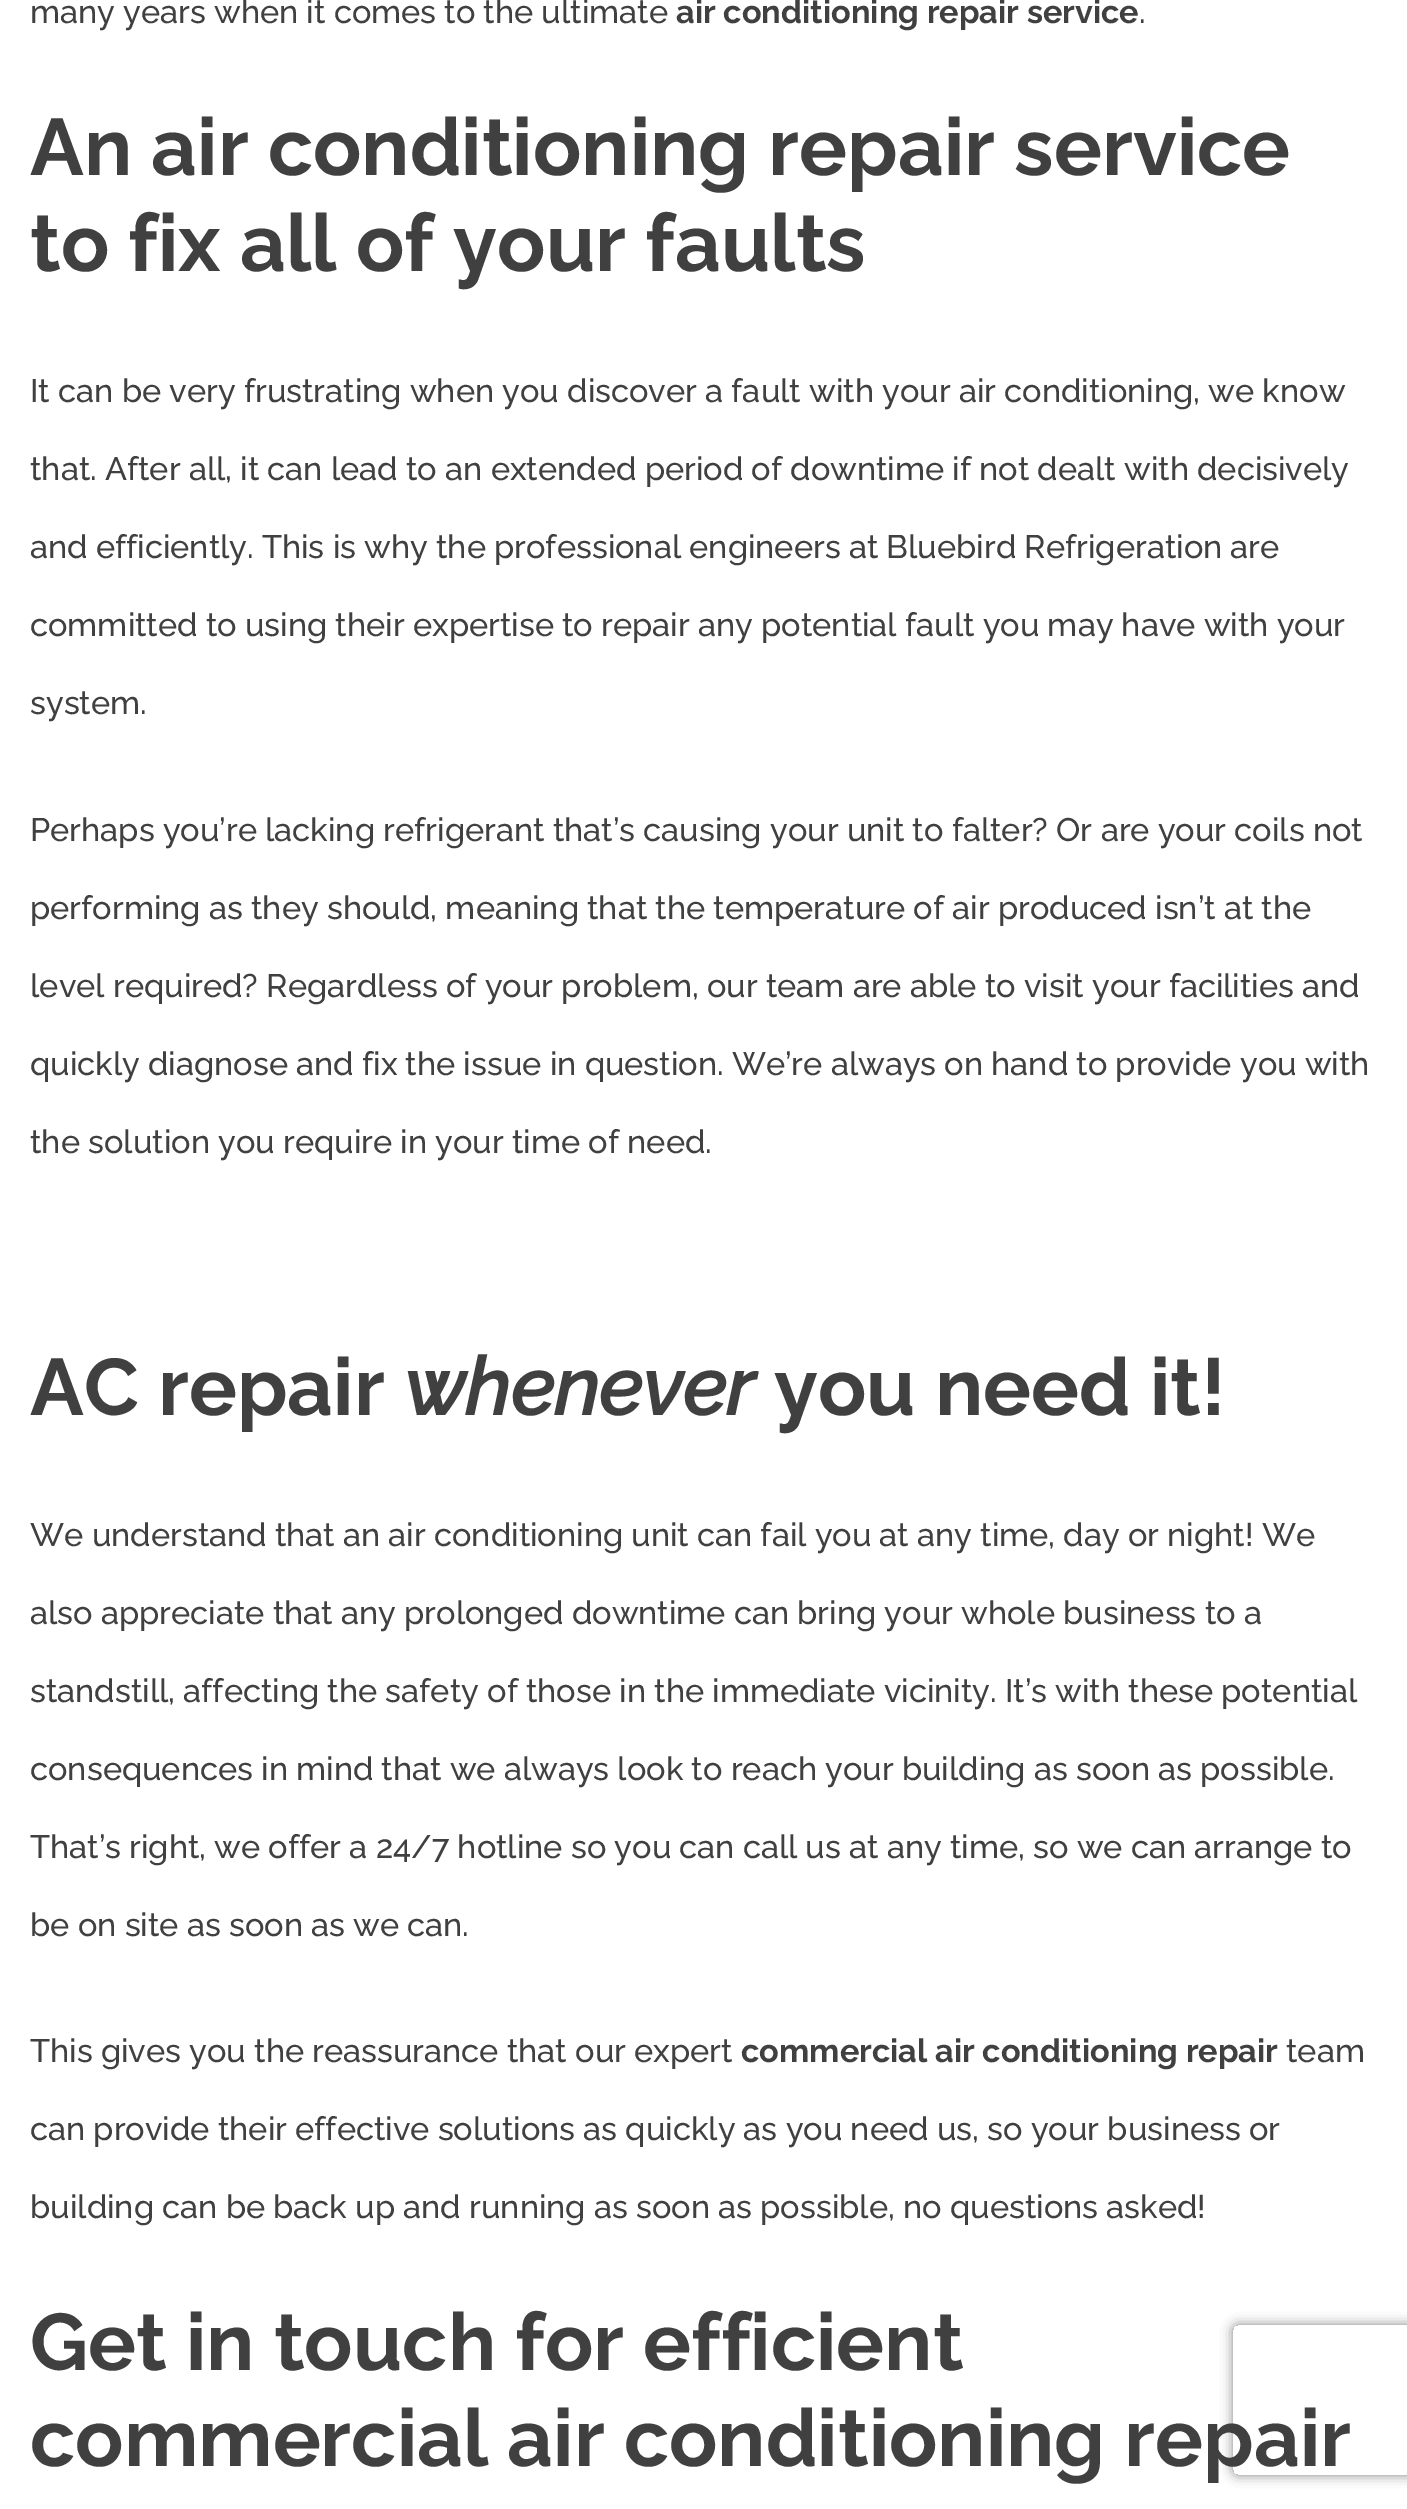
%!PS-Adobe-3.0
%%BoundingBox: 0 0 1407 2509
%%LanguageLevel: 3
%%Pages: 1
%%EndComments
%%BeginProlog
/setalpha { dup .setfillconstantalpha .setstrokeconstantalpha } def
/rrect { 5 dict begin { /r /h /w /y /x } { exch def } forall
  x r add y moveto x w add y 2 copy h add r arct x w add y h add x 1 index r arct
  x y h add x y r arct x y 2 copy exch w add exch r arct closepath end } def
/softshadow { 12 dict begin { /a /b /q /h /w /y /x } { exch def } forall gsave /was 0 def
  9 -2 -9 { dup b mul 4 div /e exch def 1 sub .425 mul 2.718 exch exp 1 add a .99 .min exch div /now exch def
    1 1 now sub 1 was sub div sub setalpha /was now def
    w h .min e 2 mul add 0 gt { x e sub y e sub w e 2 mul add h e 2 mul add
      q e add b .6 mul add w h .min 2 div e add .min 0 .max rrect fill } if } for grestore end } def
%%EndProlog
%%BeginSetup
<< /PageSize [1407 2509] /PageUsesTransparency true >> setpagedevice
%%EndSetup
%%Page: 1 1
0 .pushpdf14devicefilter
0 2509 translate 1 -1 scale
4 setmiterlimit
1 setgray
0 0 1407 2509 rectfill
gsave
newpath 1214 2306 moveto 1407 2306 lineto 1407 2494 lineto 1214 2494 lineto closepath 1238 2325 moveto 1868 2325 lineto 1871 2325 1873 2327 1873 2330 curveto 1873 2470 lineto 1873 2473 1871 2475 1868 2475 curveto 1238 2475 lineto 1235 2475 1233 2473 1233 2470 curveto 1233 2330 lineto 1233 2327 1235 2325 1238 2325 curveto closepath eoclip newpath
0.502 setgray
1233 2325 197 150 5 6 1 softshadow
grestore
/Raleway-Medium [32.5 0 0 -32.5 0 0] selectfont
0.251 setgray
30 23 moveto (many years when it comes to the ultimate) show
/Raleway-Bold [32.5 0 0 -32.5 0 0] selectfont
676 23 moveto (air conditioning repair service) show
/Raleway-Medium [32.5 0 0 -32.5 0 0] selectfont
1139 23 moveto (.) show
/Raleway-Bold [80 0 0 -80 0 0] selectfont
30 175 moveto (An air conditioning repair service) show
30 271 moveto (to fix all of your faults) show
/Raleway-Medium [32.5 0 0 -32.5 0 0] selectfont
30 402 moveto (It can be very frustrating when you discover a fault with your air conditioning, we know) show
30 480 moveto (that. After all, it can lead to an extended period of downtime if not dealt with decisively) show
30 558 moveto (and efficiently. This is why the professional engineers at Bluebird Refrigeration are) show
30 636 moveto (committed to using their expertise to repair any potential fault you may have with your) show
30 714 moveto (system.) show
30 841 moveto (Perhaps you’re lacking refrigerant that’s causing your unit to falter? Or are your coils not) show
30 919 moveto (performing as they should, meaning that the temperature of air produced isn’t at the) show
30 997 moveto (level required? Regardless of your problem, our team are able to visit your facilities and) show
30 1075 moveto (quickly diagnose and fix the issue in question. We’re always on hand to provide you with) show
30 1153 moveto (the solution you require in your time of need.) show
/Raleway-Bold [80 0 0 -80 0 0] selectfont
30 1415 moveto (AC repair) show
/Raleway-BoldItalic [80 0 0 -80 0 0] selectfont
404 1415 moveto (whenever) show
/Raleway-Bold [80 0 0 -80 0 0] selectfont
774 1415 moveto (you need it!) show
/Raleway-Medium [32.5 0 0 -32.5 0 0] selectfont
30 1546 moveto (We understand that an air conditioning unit can fail you at any time, day or night! We) show
30 1624 moveto (also appreciate that any prolonged downtime can bring your whole business to a) show
30 1702 moveto (standstill, affecting the safety of those in the immediate vicinity. It’s with these potential) show
30 1780 moveto (consequences in mind that we always look to reach your building as soon as possible.) show
30 1858 moveto (That’s right, we offer a 24/7 hotline so you can call us at any time, so we can arrange to) show
30 1936 moveto (be on site as soon as we can.) show
30 2062 moveto (This gives you the reassurance that our expert) show
/Raleway-Bold [32.5 0 0 -32.5 0 0] selectfont
741 2062 moveto (commercial air conditioning repair) show
/Raleway-Medium [32.5 0 0 -32.5 0 0] selectfont
1286 2062 moveto (team) show
30 2140 moveto (can provide their effective solutions as quickly as you need us, so your business or) show
30 2218 moveto (building can be back up and running as soon as possible, no questions asked!) show
/Raleway-Bold [80 0 0 -80 0 0] selectfont
30 2370 moveto (Get in touch for efficient) show
30 2466 moveto (commercial air conditioning repair) show
.poppdf14devicefilter showpage
%%EOF
